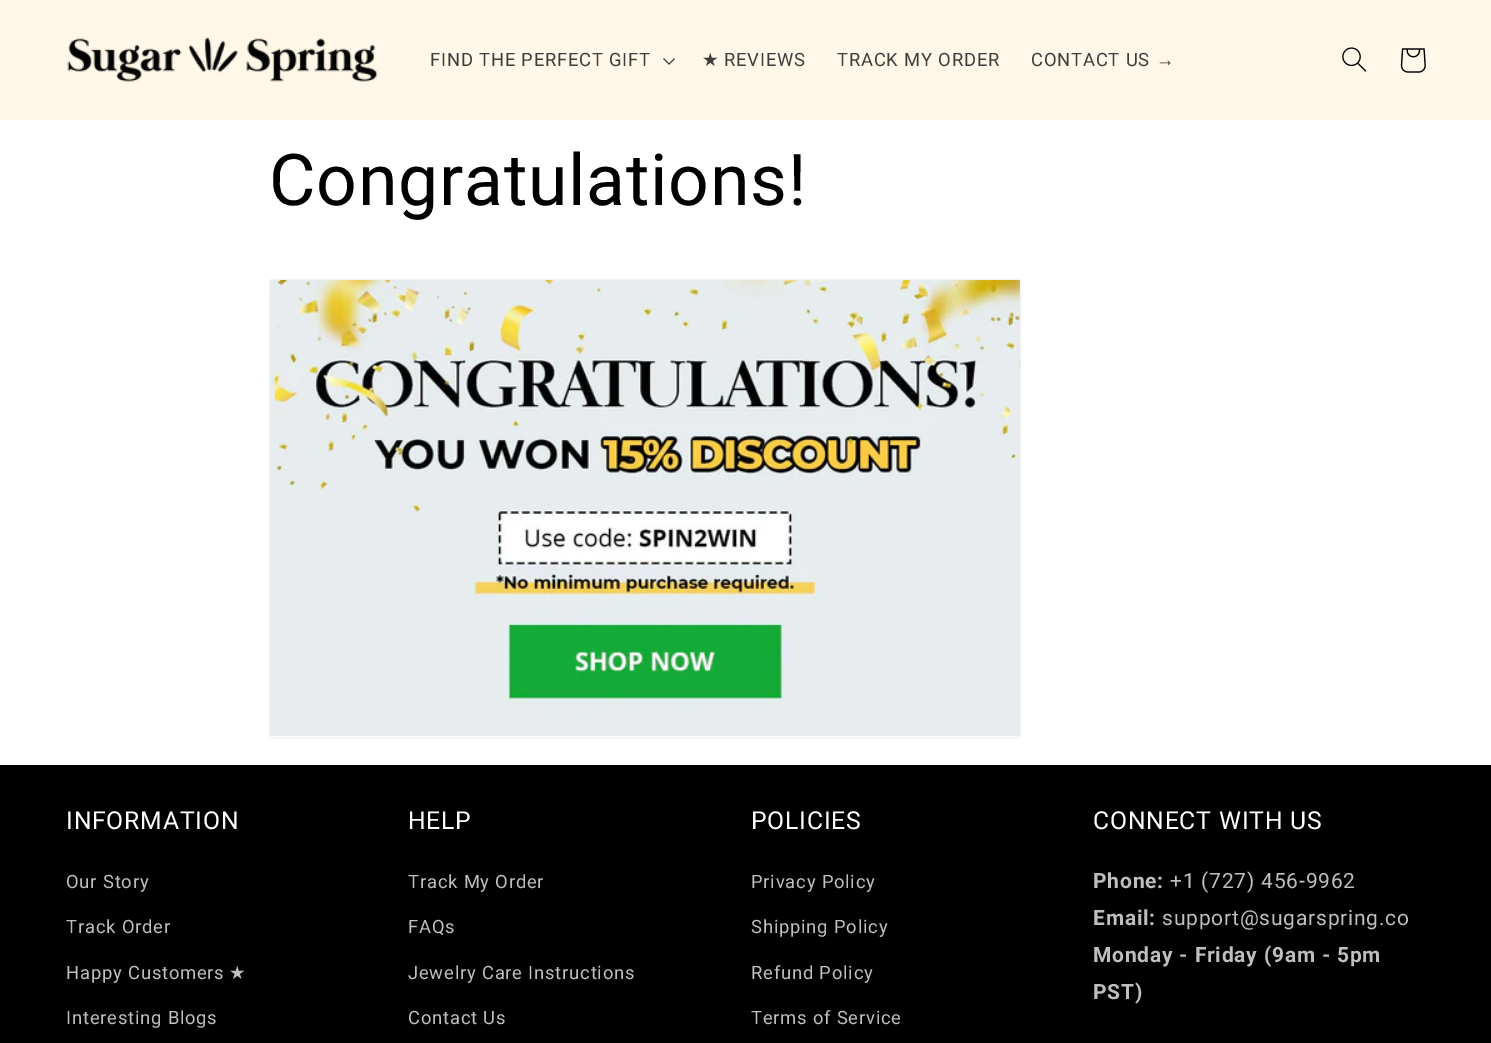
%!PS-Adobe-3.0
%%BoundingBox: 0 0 1491 1043
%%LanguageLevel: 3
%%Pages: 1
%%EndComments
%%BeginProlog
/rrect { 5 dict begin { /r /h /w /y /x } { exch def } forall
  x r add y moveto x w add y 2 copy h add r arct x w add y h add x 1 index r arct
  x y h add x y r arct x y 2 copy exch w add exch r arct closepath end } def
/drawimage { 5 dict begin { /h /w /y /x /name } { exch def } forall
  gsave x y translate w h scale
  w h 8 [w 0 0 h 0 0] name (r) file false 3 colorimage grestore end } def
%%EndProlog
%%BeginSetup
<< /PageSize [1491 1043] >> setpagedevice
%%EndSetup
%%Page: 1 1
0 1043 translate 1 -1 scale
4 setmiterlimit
1 setgray
0 0 1491 1043 rectfill
1 0.973 0.914 setrgbcolor
0 0 1491 120 rectfill
(images/1.raw) 67 37 311 45 drawimage
(images/2.raw) 663 58 12 7 drawimage
(images/3.raw) 1342 47 25 25 drawimage
(images/4.raw) 1400 48 26 25 drawimage
0.949 setgray
269.5 279.5 751 458 2 rrect stroke
(images/5.raw) 270 280 750 456 drawimage
0 setgray
0 765 1491 278 rectfill
/Roboto-Regular [18.4 0 0 -18.4 0 0] selectfont
0.251 0.243 0.227 setrgbcolor
430 66 moveto 0.8 0 (FIND THE PERFECT GIFT) ashow
/DejaVuSans-Regular [18.4 0 0 -18.4 0 0] selectfont
702 66 moveto 0.8 0 (★) ashow
/Roboto-Regular [18.4 0 0 -18.4 0 0] selectfont
724 66 moveto 0.8 0 (REVIEWS) ashow
837 66 moveto 0.8 0 (TRACK MY ORDER) ashow
1031 66 moveto 0.8 0 (CONTACT US) ashow
/LiberationSans-Regular [18.4 0 0 -18.4 0 0] selectfont
1156 66 moveto 0.8 0 (→) ashow
/Roboto-Regular [71.5 0 0 -71.5 0 0] selectfont
0 setgray
269 205 moveto 0.8 0 (Congratulations!) ashow
/Roboto-Regular [24.75 0 0 -24.75 0 0] selectfont
1 setgray
66 829 moveto 0.8 0 (INFORMATION) ashow
/Roboto-Regular [18.4 0 0 -18.4 0 0] selectfont
0.749 setgray
66 888 moveto 0.8 0 (Our Story) ashow
66 933 moveto 0.8 0 (Track Order) ashow
66 979 moveto 0.8 0 (Happy Customers) ashow
/DejaVuSans-Regular [18.4 0 0 -18.4 0 0] selectfont
229 979 moveto 0.8 0 (★) ashow
/Roboto-Regular [18.4 0 0 -18.4 0 0] selectfont
66 1024 moveto 0.8 0 (Interesting Blogs) ashow
/Roboto-Regular [24.75 0 0 -24.75 0 0] selectfont
1 setgray
408 829 moveto 0.8 0 (HELP) ashow
/Roboto-Regular [18.4 0 0 -18.4 0 0] selectfont
0.749 setgray
408 888 moveto 0.8 0 (Track My Order) ashow
408 933 moveto 0.8 0 (FAQs) ashow
408 979 moveto 0.8 0 (Jewelry Care Instructions) ashow
408 1024 moveto 0.8 0 (Contact Us) ashow
/Roboto-Regular [24.75 0 0 -24.75 0 0] selectfont
1 setgray
751 829 moveto 0.8 0 (POLICIES) ashow
/Roboto-Regular [18.4 0 0 -18.4 0 0] selectfont
0.749 setgray
751 888 moveto 0.8 0 (Privacy Policy) ashow
751 933 moveto 0.8 0 (Shipping Policy) ashow
751 979 moveto 0.8 0 (Refund Policy) ashow
751 1024 moveto 0.8 0 (Terms of Service) ashow
/Roboto-Regular [24.75 0 0 -24.75 0 0] selectfont
1 setgray
1093 829 moveto 0.8 0 (CONNECT WITH US) ashow
/Roboto-Bold [21 0 0 -21 0 0] selectfont
0.749 setgray
1093 888 moveto 0.8 0 (Phone:) ashow
/Roboto-Regular [21 0 0 -21 0 0] selectfont
1170 888 moveto 0.8 0 (+1 \(727\) 456-9962) ashow
/Roboto-Bold [21 0 0 -21 0 0] selectfont
1093 925 moveto 0.8 0 (Email:) ashow
/Roboto-Regular [21 0 0 -21 0 0] selectfont
1162 925 moveto 0.8 0 (support@sugarspring.co) ashow
/Roboto-Bold [21 0 0 -21 0 0] selectfont
1093 962 moveto 0.8 0 (Monday - Friday \(9am - 5pm) ashow
1093 999 moveto 0.8 0 (PST\)) ashow
showpage
%%EOF
